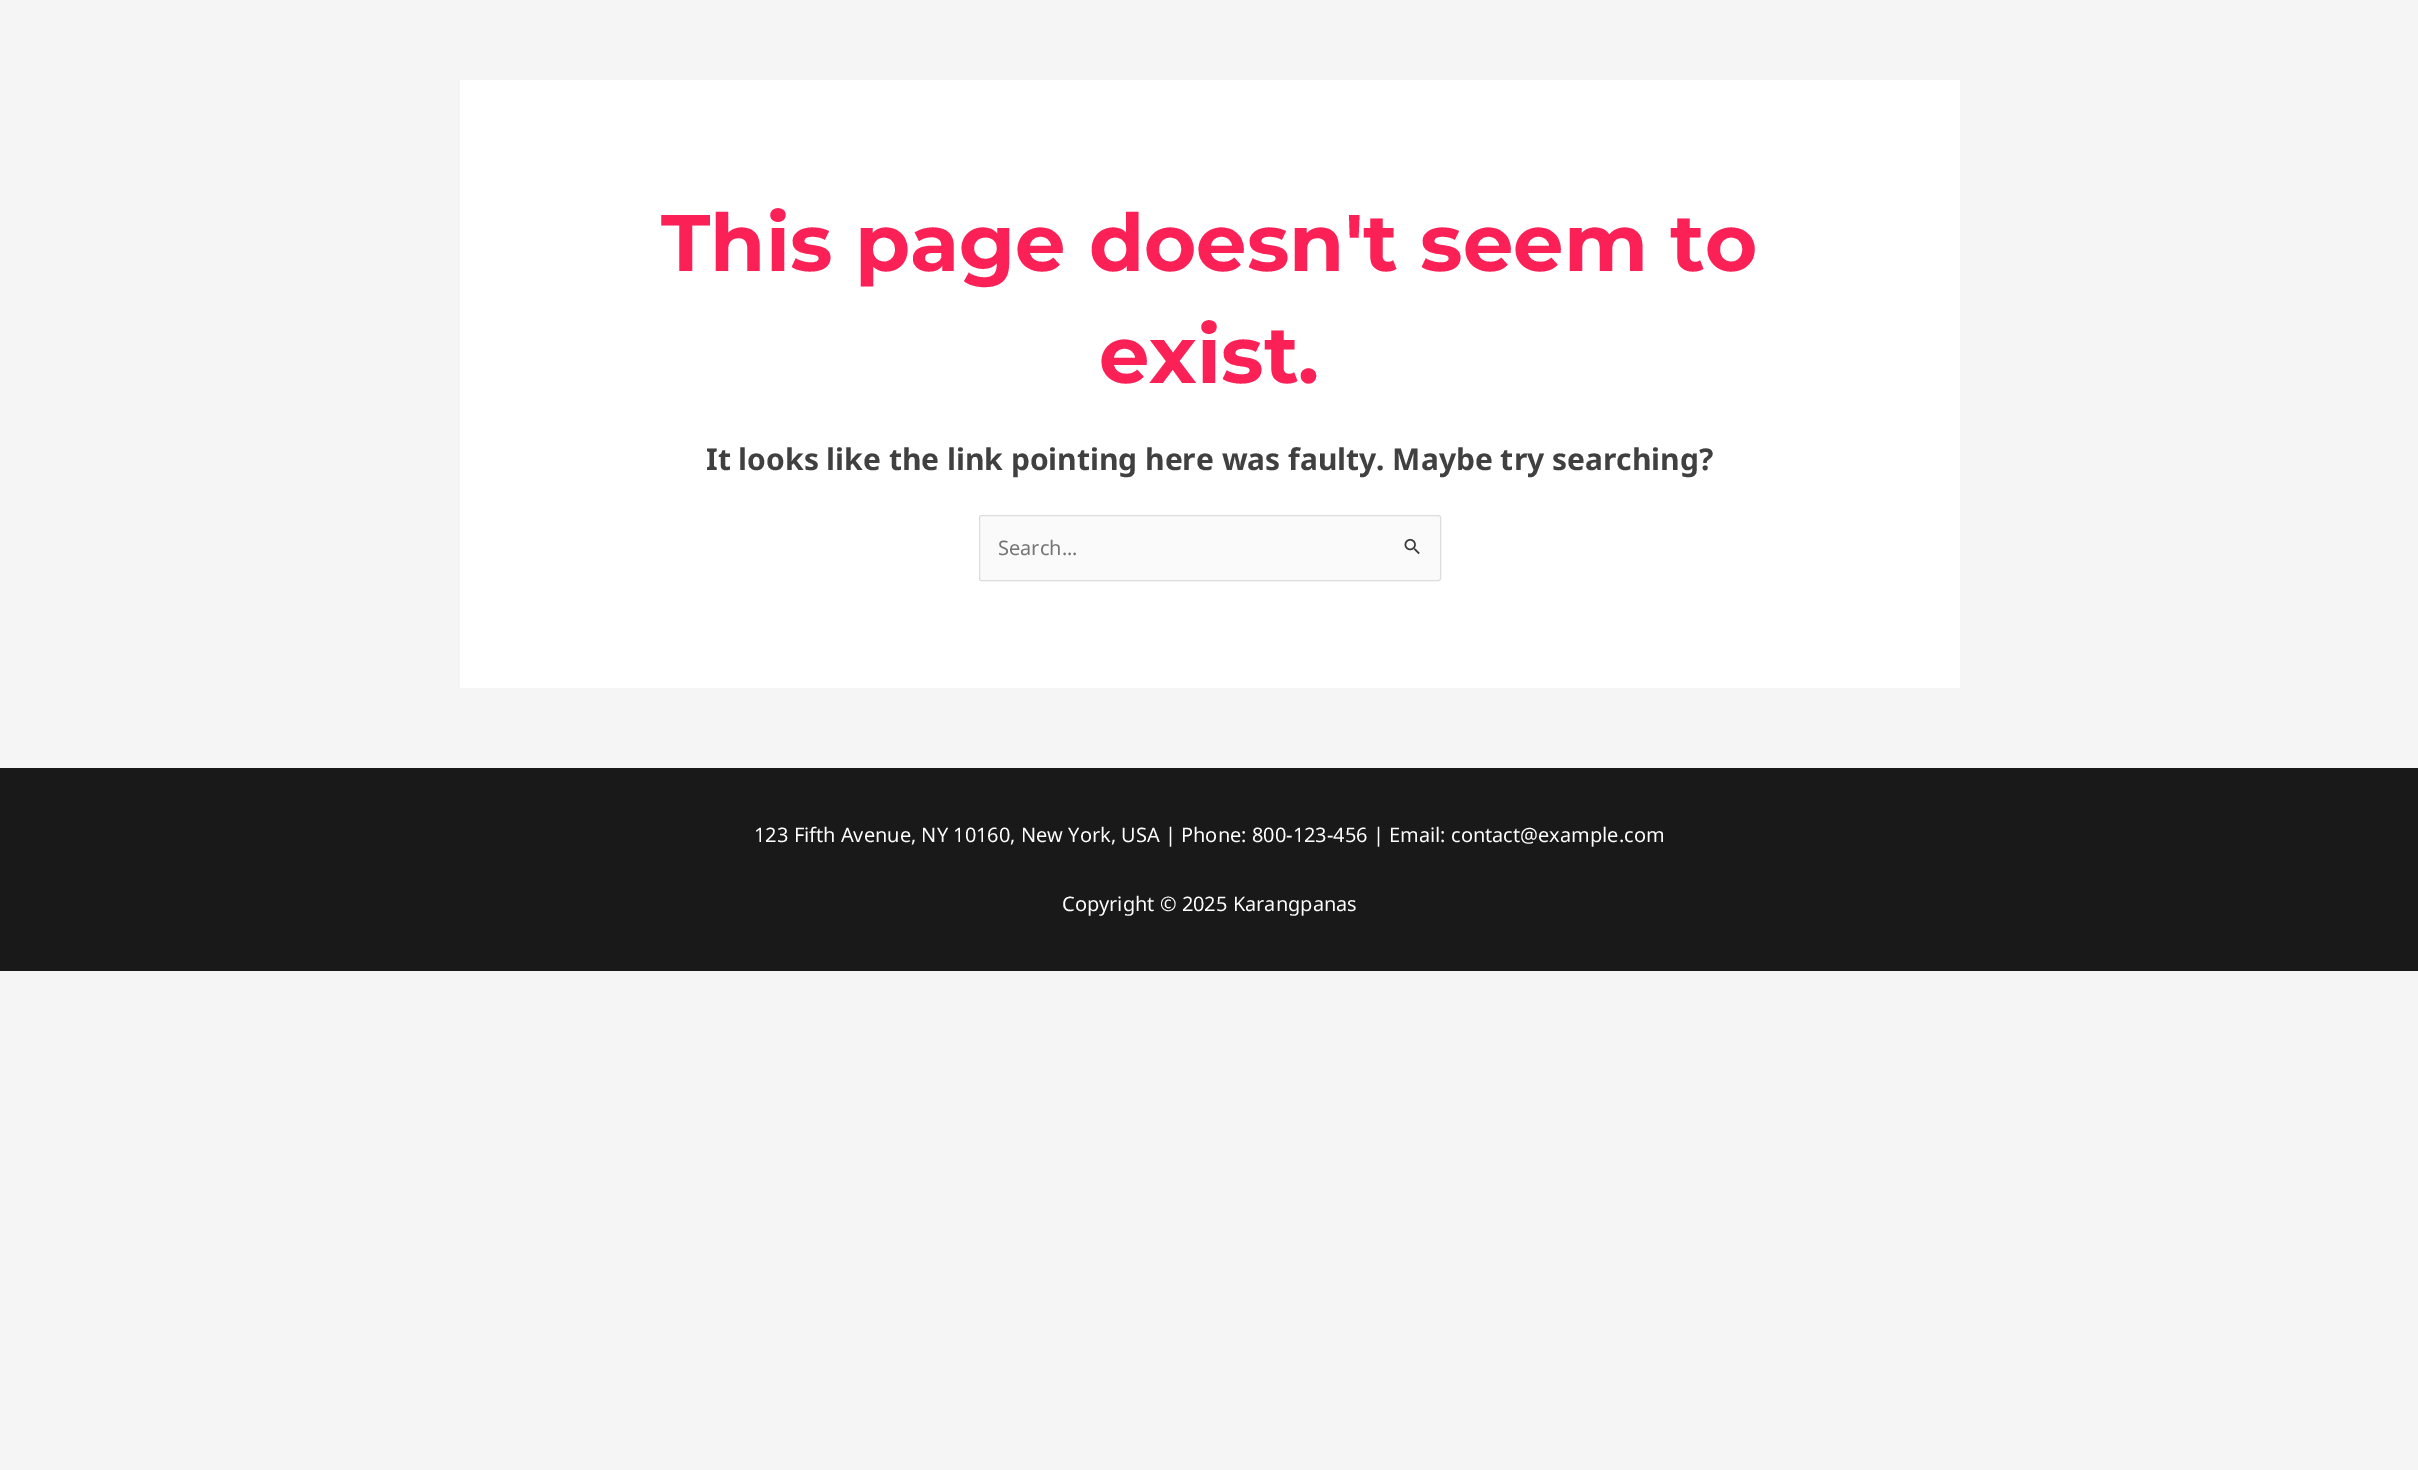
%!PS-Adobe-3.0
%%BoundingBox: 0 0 2418 1470
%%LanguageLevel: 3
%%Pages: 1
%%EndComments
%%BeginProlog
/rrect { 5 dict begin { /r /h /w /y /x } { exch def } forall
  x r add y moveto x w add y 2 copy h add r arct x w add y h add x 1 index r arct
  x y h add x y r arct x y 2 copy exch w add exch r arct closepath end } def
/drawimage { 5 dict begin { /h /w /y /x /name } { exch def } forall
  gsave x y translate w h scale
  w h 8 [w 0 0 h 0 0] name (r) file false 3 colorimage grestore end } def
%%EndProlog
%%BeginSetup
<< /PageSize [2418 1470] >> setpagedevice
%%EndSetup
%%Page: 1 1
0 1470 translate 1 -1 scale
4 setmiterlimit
0.961 setgray
0 0 2418 1470 rectfill
1 setgray
460 80 1500 608 rectfill
0.98 setgray
979.5 515.5 461 65 2 rrect gsave fill grestore
0.867 setgray
stroke
(images/1.raw) 1404 538 16 17 drawimage
0.098 setgray
0 768 2418 203 rectfill
/Montserrat-Thin [80 0 0 -80 0 0] selectfont
0.984 0.125 0.337 setrgbcolor
661 271 moveto (This page doesn't seem to) show
1099 383 moveto (exist.) show
/NotoSans-Bold [30 0 0 -30 0 0] selectfont
0.251 setgray
706 470 moveto (It looks like the link pointing here was faulty. Maybe try searching?) show
/NotoSans-Regular [20 0 0 -20 0 0] selectfont
0.459 setgray
998 555 moveto (Search...) show
1 setgray
754 842 moveto (123 Fifth Avenue, NY 10160, New York, USA | Phone: 800-123-456 | Email: contact@example.com) show
1062 911 moveto (Copyright © 2025 Karangpanas) show
showpage
%%EOF
